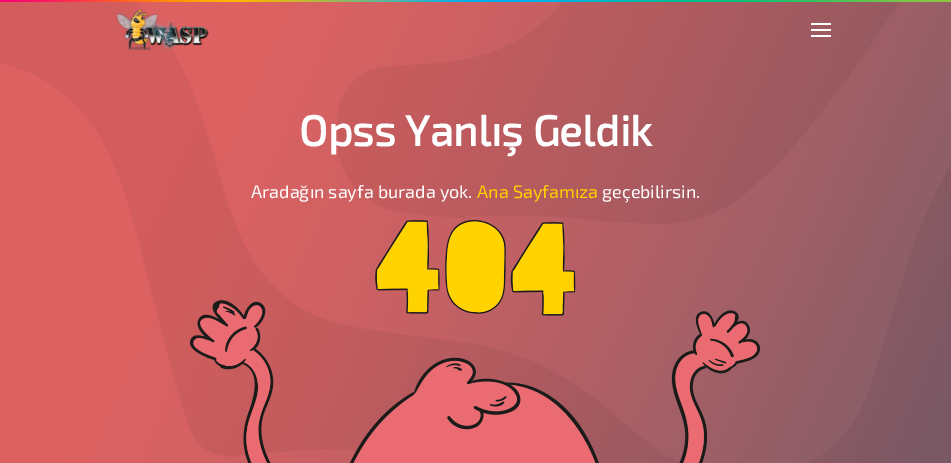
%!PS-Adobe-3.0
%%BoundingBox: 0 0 951 463
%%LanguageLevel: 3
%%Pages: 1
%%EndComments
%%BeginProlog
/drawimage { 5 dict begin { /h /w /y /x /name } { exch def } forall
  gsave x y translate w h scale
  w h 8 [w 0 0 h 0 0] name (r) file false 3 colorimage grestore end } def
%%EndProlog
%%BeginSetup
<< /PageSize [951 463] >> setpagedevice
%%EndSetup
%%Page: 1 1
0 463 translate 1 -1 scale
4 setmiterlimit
1 setgray
0 0 951 463 rectfill
(images/1.raw) 0 0 951 2 drawimage
(images/3.raw) 0 2 951 461 drawimage
(images/2.raw) 116 10 93 40 drawimage
811 35 20 2 rectfill
811 23 20 2 rectfill
811 29 20 2 rectfill
(images/4.raw) 190 220 570 243 drawimage
/Exo2-Bold [42.75 0 0 -42.75 0 0] selectfont
299 146 moveto (Opss Yanlış Geldik) show
/Exo2-Regular [18 0 0 -18 0 0] selectfont
251 198 moveto (Aradağın sayfa burada yok.) show
1 0.824 0 setrgbcolor
477 198 moveto (Ana Sayfamıza) show
1 setgray
602 198 moveto (geçebilirsin.) show
showpage
%%EOF
